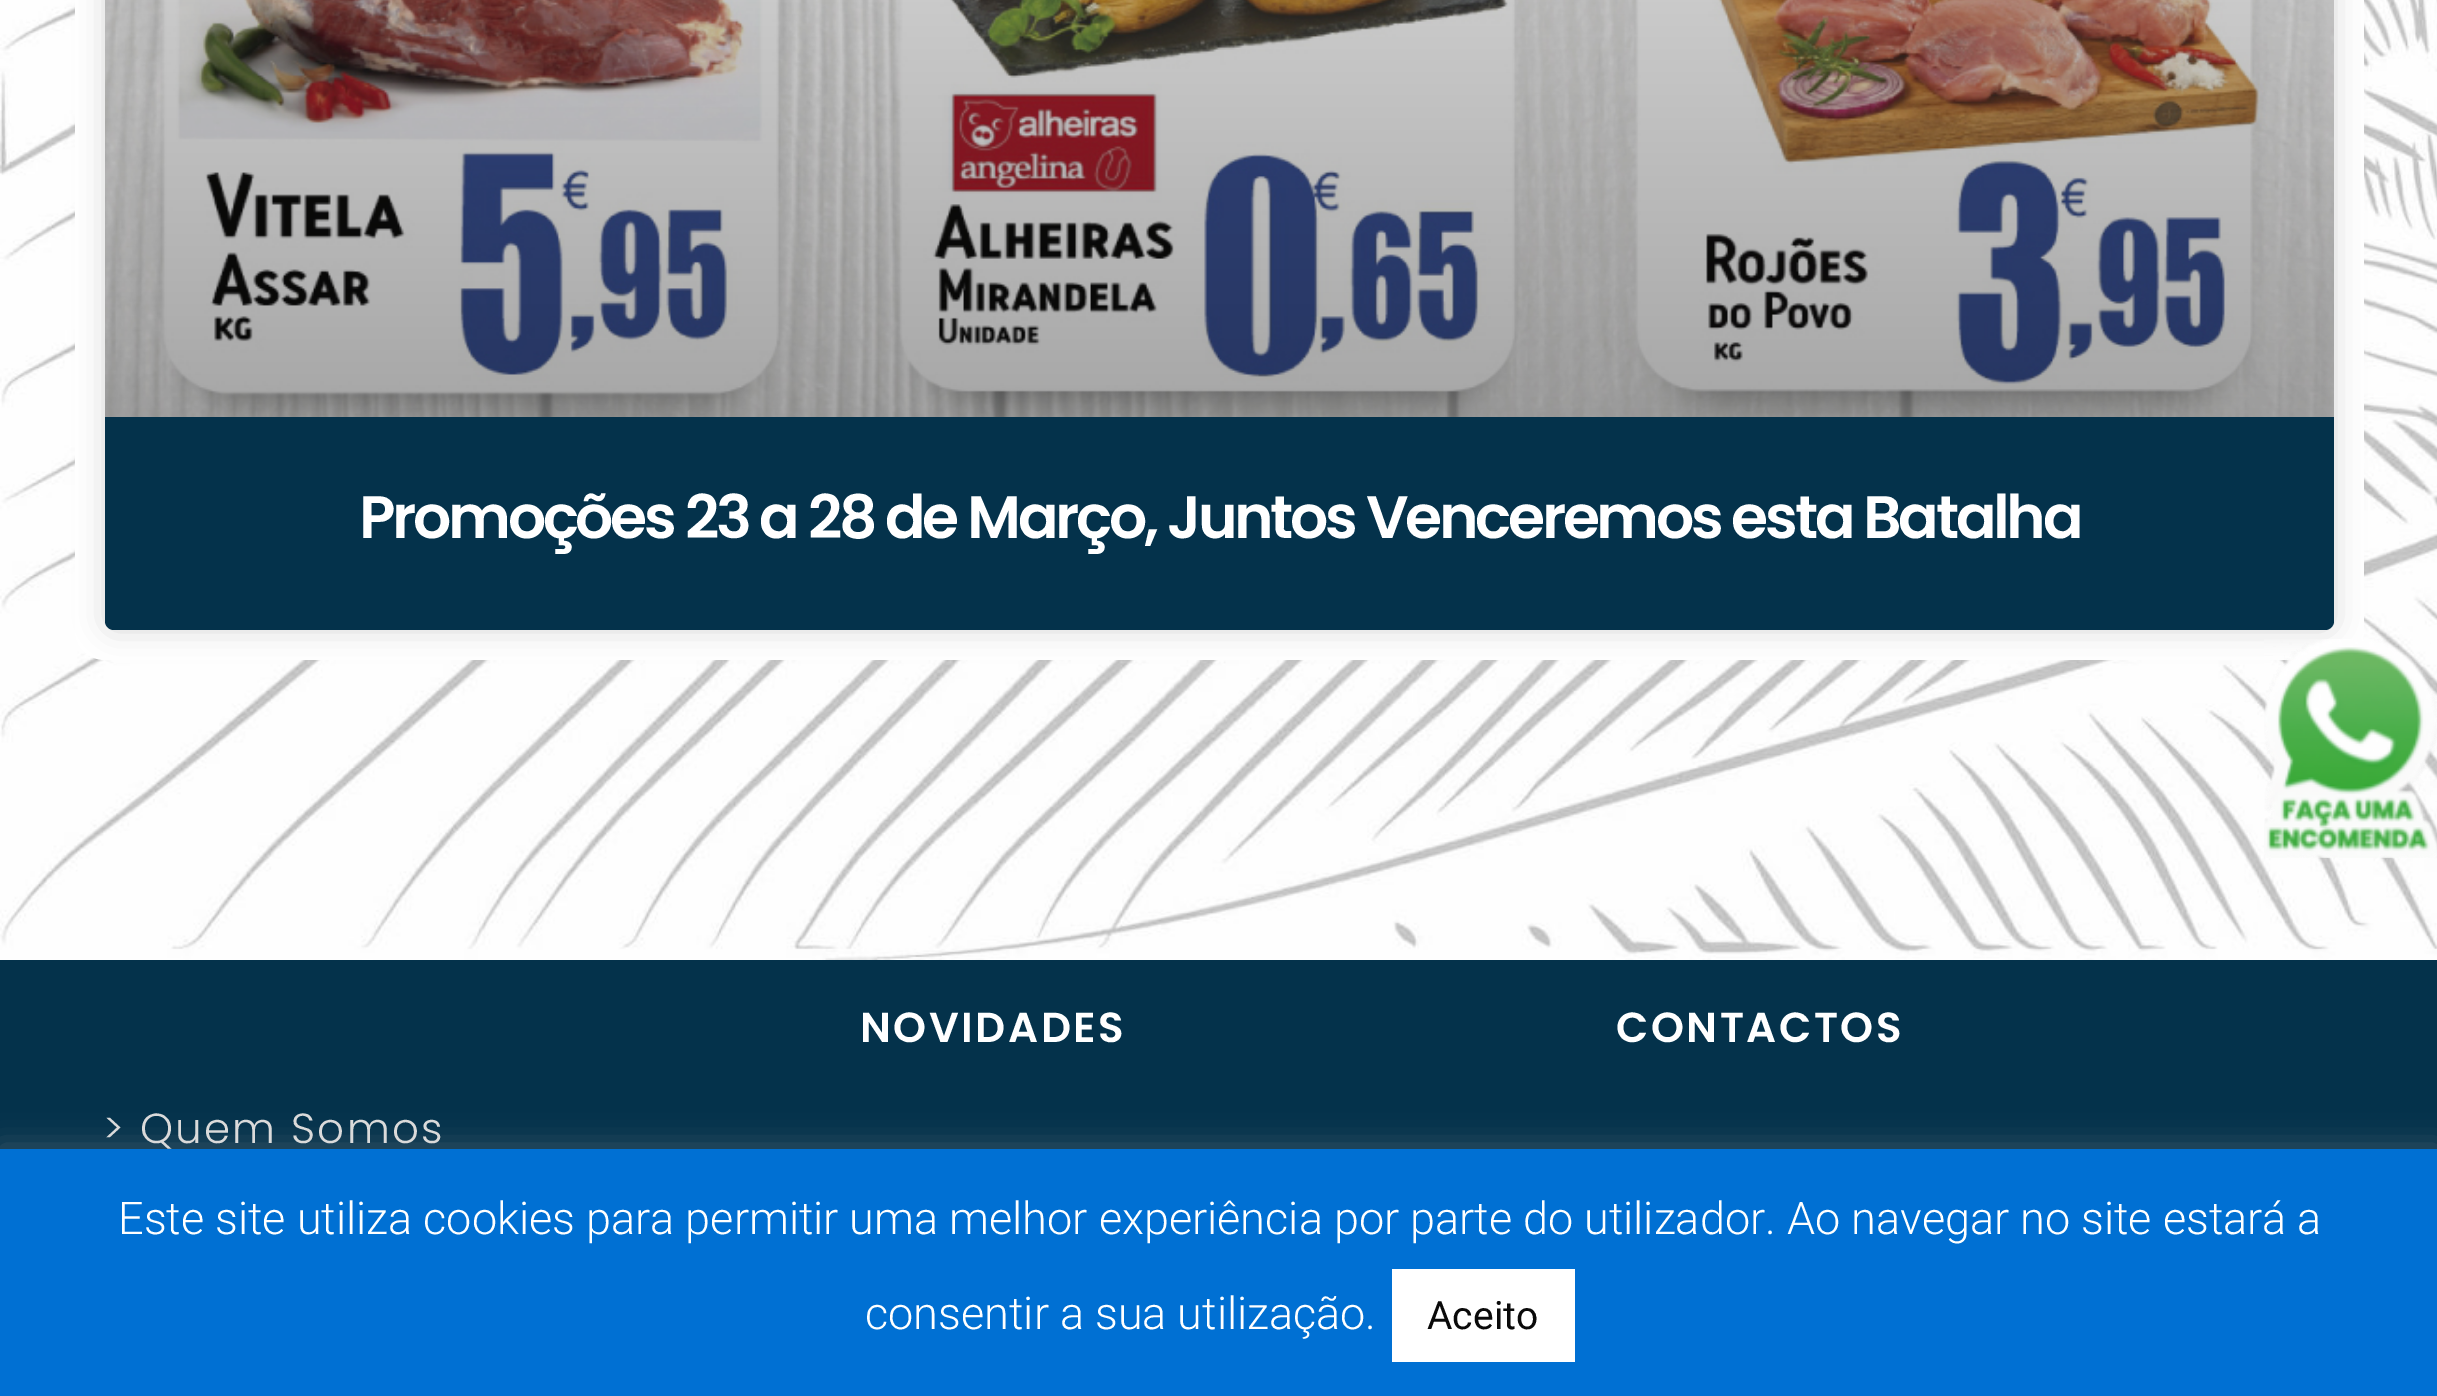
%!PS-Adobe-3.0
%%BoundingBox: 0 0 2437 1396
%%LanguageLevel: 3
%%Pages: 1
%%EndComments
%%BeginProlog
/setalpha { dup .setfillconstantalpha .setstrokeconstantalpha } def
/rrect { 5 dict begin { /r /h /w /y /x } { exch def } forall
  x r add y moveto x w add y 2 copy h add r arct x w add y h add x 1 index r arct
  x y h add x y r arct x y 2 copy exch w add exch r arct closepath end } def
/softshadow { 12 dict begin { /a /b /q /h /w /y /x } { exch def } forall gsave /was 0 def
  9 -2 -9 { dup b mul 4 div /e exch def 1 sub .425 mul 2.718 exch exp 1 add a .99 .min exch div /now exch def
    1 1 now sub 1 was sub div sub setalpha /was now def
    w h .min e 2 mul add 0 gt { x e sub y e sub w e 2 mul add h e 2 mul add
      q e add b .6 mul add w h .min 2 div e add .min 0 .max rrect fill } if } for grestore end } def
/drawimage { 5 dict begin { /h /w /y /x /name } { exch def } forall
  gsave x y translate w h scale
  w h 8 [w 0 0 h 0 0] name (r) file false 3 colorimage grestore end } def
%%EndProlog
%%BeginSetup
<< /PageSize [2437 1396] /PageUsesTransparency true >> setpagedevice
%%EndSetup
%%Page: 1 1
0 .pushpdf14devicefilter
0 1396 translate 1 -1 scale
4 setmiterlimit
1 setgray
0 0 2437 1396 rectfill
(images/1.raw) 0 0 2437 960 drawimage
75 -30 2289 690 30 rrect fill
0 setgray
105 -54 2229 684 9 15 0.15 softshadow
0.016 0.196 0.294 setrgbcolor
105 -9 2229 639 9 rrect fill
(images/2.raw) 105 0 2229 417 drawimage
(images/3.raw) 2264 639 173 219 drawimage
(images/4.raw) 2265 643 172 215 drawimage
0 960 2437 189 rectfill
0.675 0.671 0.671 setrgbcolor
0 1146 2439 249 0 15 0.3 softshadow
0 0.439 0.827 setrgbcolor
0 1149 2437 247 rectfill
1 setgray
1392 1269 183 93 rectfill
/Poppins-SemiBold [60 0 0 -60 0 0] selectfont
359 538 moveto -3.3 0 (Promoções 23 a 28 de Março, Juntos Venceremos esta Batalha) ashow
/Poppins-SemiBold [42 0 0 -42 0 0] selectfont
860 1042 moveto 2.5 0 (NOVIDADES) ashow
1616 1042 moveto 2.5 0 (CONTACTOS) ashow
/Poppins-Light [42 0 0 -42 0 0] selectfont
0.855 setgray
103 1143 moveto 2.25 0 (> Quem Somos) ashow
/Roboto-Light [45 0 0 -45 0 0] selectfont
1 setgray
118 1234 moveto (Este site utiliza cookies para permitir uma melhor experiência por parte do utilizador. Ao navegar no site estará a) show
865 1329 moveto (consentir a sua utilização.) show
/Roboto-Regular [39 0 0 -39 0 0] selectfont
0.039 setgray
1427 1329 moveto (Aceito) show
.poppdf14devicefilter showpage
%%EOF
